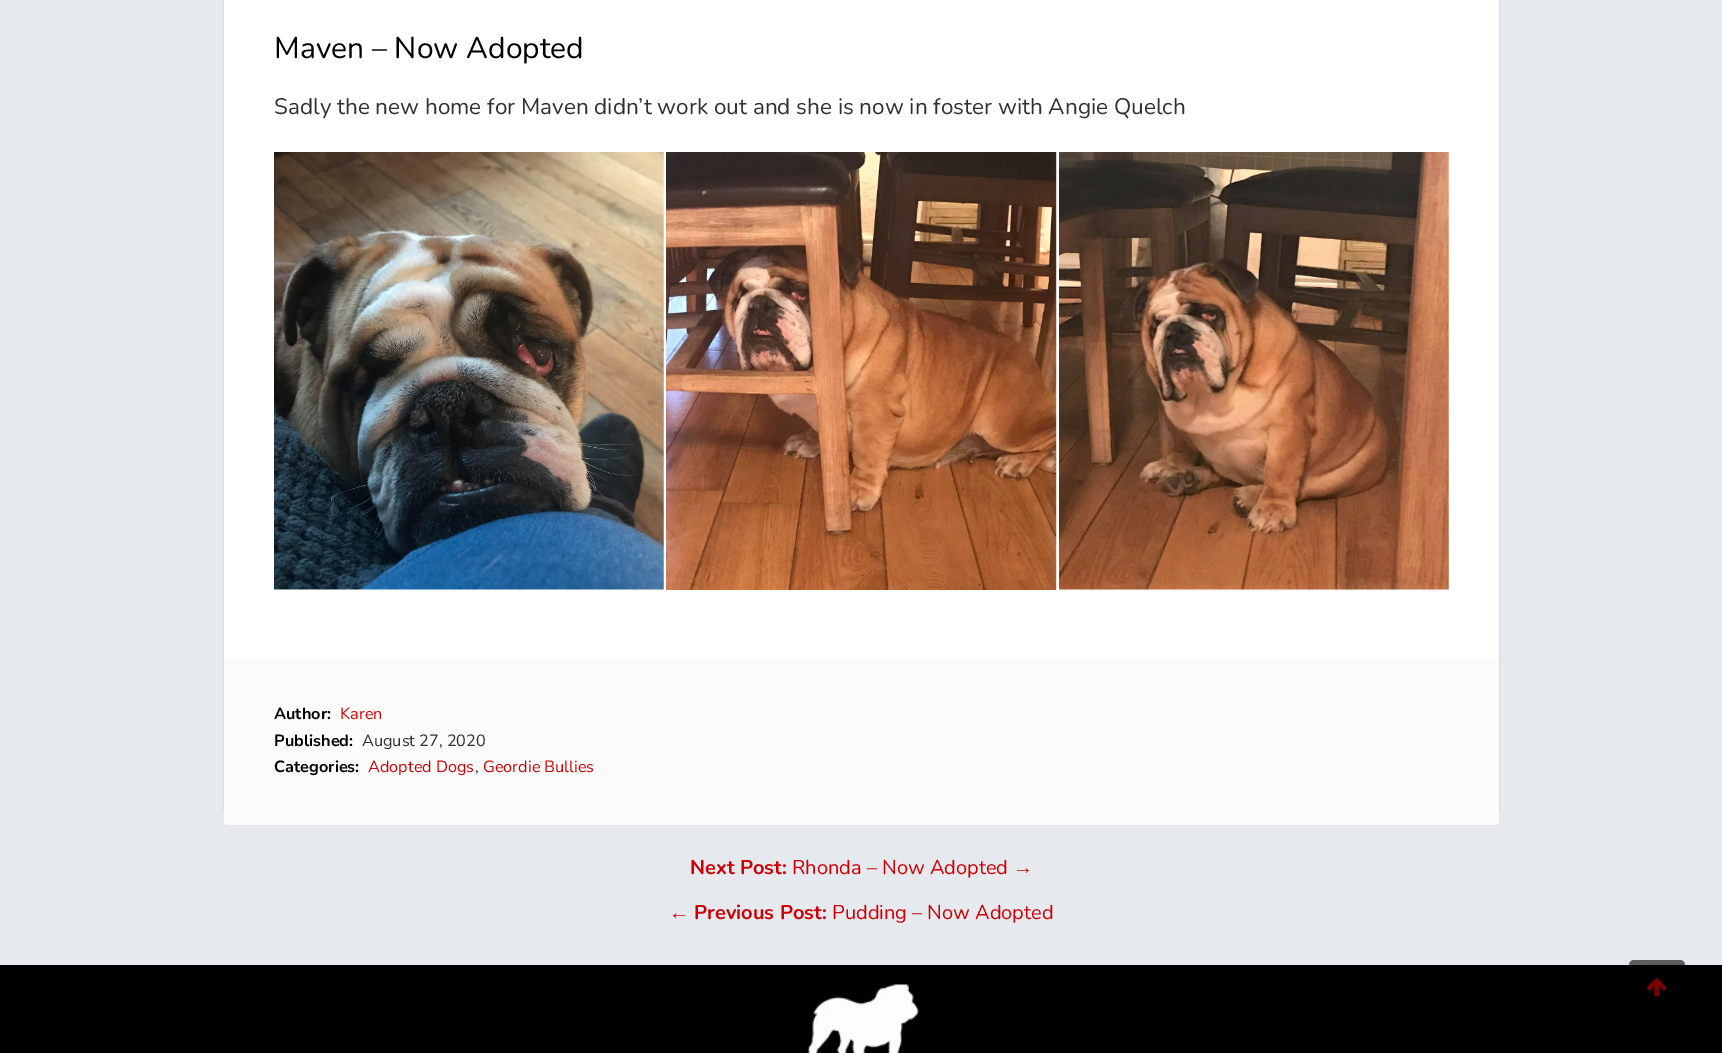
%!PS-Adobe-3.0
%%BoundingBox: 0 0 1722 1053
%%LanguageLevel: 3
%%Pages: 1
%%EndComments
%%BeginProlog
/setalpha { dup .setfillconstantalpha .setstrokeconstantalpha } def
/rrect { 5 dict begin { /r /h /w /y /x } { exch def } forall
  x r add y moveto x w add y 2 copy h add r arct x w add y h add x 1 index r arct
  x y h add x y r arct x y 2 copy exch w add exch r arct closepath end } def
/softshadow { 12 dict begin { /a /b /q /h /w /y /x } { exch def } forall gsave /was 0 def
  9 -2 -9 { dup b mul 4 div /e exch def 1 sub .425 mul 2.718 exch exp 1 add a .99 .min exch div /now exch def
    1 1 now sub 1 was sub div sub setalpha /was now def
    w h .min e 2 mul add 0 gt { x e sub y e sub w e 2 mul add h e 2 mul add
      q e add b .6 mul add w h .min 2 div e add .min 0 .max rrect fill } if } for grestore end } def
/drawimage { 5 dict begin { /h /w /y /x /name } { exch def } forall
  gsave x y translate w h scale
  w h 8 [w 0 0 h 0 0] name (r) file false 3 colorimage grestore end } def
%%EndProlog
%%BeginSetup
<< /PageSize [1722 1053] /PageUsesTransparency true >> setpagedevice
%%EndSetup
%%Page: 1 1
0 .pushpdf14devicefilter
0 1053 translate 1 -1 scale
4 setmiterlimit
0.902 0.914 0.933 setrgbcolor
0 0 1722 1053 rectfill
0 setgray
224 -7 1275 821 4 1 0.15 softshadow
1 setgray
224 0 1275 659 rectfill
(images/1.raw) 274 152 390 438 drawimage
(images/2.raw) 666 152 391 438 drawimage
(images/3.raw) 1059 152 390 438 drawimage
0.984 setgray
newpath 224 659 moveto 1499 659 lineto 1499 821 lineto 1499 823 1497 825 1495 825 curveto 228 825 lineto 226 825 224 823 224 821 curveto closepath fill
0 setgray
0 965 1722 88 rectfill
0.6 setalpha
1629 960 56 56 5 rrect fill
1 setalpha
(images/4.raw) 1647 978 20 19 drawimage
(images/5.raw) 807 984 112 69 drawimage
/Nunito-Regular [30 0 0 -30 0 0] selectfont
274 58 moveto (Maven – Now Adopted) show
/Nunito-Regular [22.5 0 0 -22.5 0 0] selectfont
0.192 setgray
274 114 moveto (Sadly the new home for Maven didn’t work out and she is now in foster with Angie Quelch) show
/Nunito-Bold [16.25 0 0 -16.25 0 0] selectfont
0 setgray
274 719 moveto (Author:) show
/Nunito-Regular [16.25 0 0 -16.25 0 0] selectfont
0.8 0.004 0.02 setrgbcolor
340 719 moveto (Karen) show
/Nunito-Bold [16.25 0 0 -16.25 0 0] selectfont
0 setgray
274 746 moveto (Published:) show
/Nunito-Regular [16.25 0 0 -16.25 0 0] selectfont
0.192 setgray
362 746 moveto (August 27, 2020) show
/Nunito-Bold [16.25 0 0 -16.25 0 0] selectfont
0 setgray
274 772 moveto (Categories:) show
/Nunito-Regular [16.25 0 0 -16.25 0 0] selectfont
0.8 0.004 0.02 setrgbcolor
368 772 moveto (Adopted Dogs) show
0.192 setgray
475 772 moveto (,) show
0.8 0.004 0.02 setrgbcolor
483 772 moveto (Geordie Bullies) show
/Nunito-Bold [20 0 0 -20 0 0] selectfont
690 874 moveto (Next Post:) show
/Nunito-Regular [20 0 0 -20 0 0] selectfont
792 874 moveto (Rhonda – Now Adopted) show
/LiberationSans-Regular [20 0 0 -20 0 0] selectfont
1013 874 moveto (→) show
669 919 moveto (←) show
/Nunito-Bold [20 0 0 -20 0 0] selectfont
694 919 moveto (Previous Post:) show
/Nunito-Regular [20 0 0 -20 0 0] selectfont
832 919 moveto (Pudding – Now Adopted) show
.poppdf14devicefilter showpage
%%EOF
